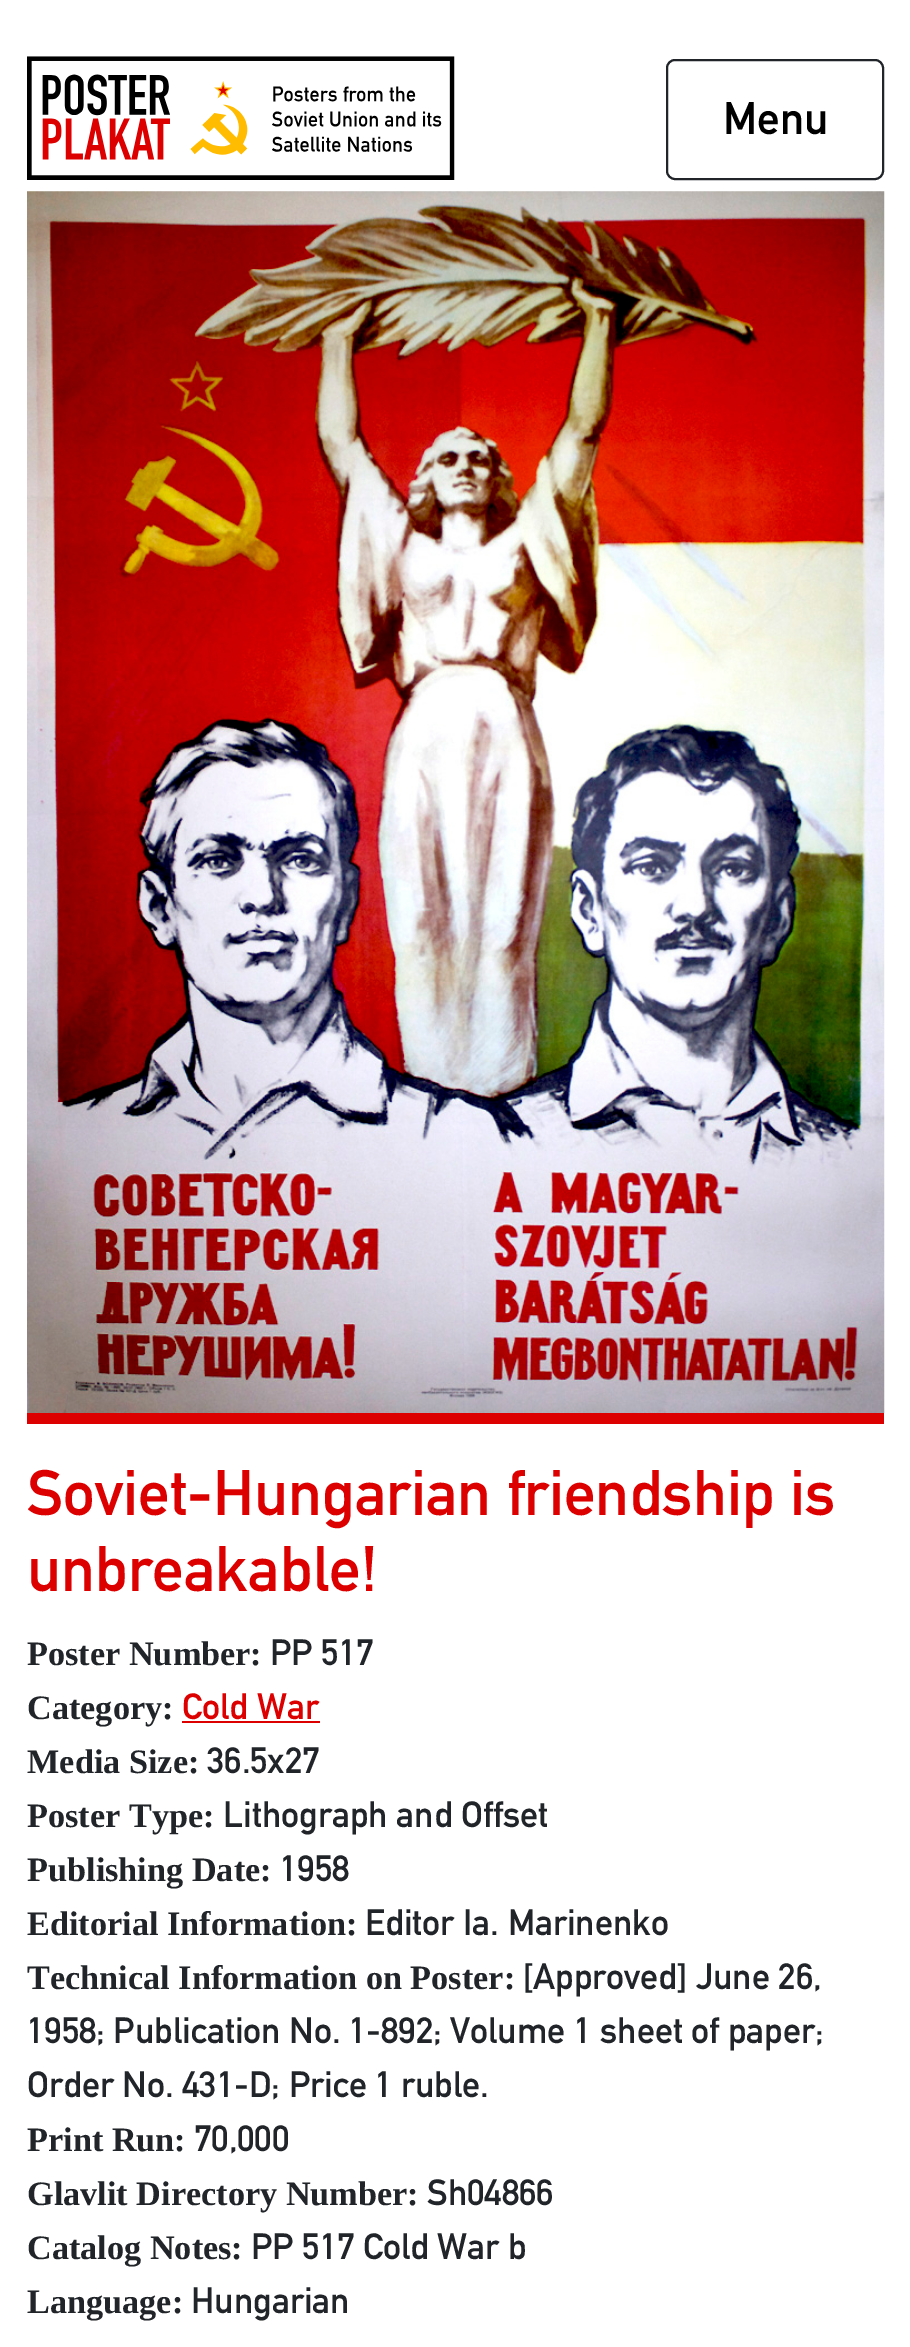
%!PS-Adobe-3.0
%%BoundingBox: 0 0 910 2347
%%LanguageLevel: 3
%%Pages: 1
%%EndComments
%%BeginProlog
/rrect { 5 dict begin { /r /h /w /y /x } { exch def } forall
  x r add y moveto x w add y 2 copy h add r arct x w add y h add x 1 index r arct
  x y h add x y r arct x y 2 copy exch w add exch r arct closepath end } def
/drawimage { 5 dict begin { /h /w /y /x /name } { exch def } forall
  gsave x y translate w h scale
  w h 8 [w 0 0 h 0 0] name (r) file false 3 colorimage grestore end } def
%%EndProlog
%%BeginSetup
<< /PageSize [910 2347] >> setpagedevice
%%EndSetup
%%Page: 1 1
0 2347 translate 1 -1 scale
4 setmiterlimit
1 setgray
0 0 910 2347 rectfill
(images/1.raw) 27 56 428 124 drawimage
0.129 0.145 0.161 setrgbcolor
2 setlinewidth
667 60 216 119 8 rrect stroke
(images/2.raw) 27 191 858 1222 drawimage
0.867 0 0 setrgbcolor
27 1413 857 11 rectfill
182 1721 138 2 rectfill
/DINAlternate-Bold [45 0 0 -45 0 0] selectfont
0 setgray
723 134 moveto (Menu) show
/DINAlternate-Bold [63.2 0 0 -63.2 0 0] selectfont
0.867 0 0 setrgbcolor
27 1515 moveto (Soviet-Hungarian friendship is) show
27 1591 moveto (unbreakable!) show
/LiberationSerif-Bold [34.25 0 0 -34.25 0 0] selectfont
0.129 0.145 0.161 setrgbcolor
27 1665 moveto (Poster Number:) show
/DINAlternate-Bold [36 0 0 -36 0 0] selectfont
270 1665 moveto (PP 517) show
/LiberationSerif-Bold [34.25 0 0 -34.25 0 0] selectfont
27 1719 moveto (Category:) show
/DINAlternate-Bold [36 0 0 -36 0 0] selectfont
0.867 0 0 setrgbcolor
182 1719 moveto (Cold War) show
/LiberationSerif-Bold [34.25 0 0 -34.25 0 0] selectfont
0.129 0.145 0.161 setrgbcolor
27 1773 moveto (Media Size:) show
/DINAlternate-Bold [36 0 0 -36 0 0] selectfont
207 1773 moveto (36.5x27) show
/LiberationSerif-Bold [34.25 0 0 -34.25 0 0] selectfont
27 1827 moveto (Poster Type:) show
/DINAlternate-Bold [36 0 0 -36 0 0] selectfont
223 1827 moveto (Lithograph and Offset) show
/LiberationSerif-Bold [34.25 0 0 -34.25 0 0] selectfont
27 1881 moveto (Publishing Date:) show
/DINAlternate-Bold [36 0 0 -36 0 0] selectfont
280 1881 moveto (1958) show
/LiberationSerif-Bold [34.25 0 0 -34.25 0 0] selectfont
27 1935 moveto (Editorial Information:) show
/DINAlternate-Bold [36 0 0 -36 0 0] selectfont
365 1935 moveto (Editor Ia. Marinenko) show
/LiberationSerif-Bold [34.25 0 0 -34.25 0 0] selectfont
27 1989 moveto (Technical Information on Poster:) show
/DINAlternate-Bold [36 0 0 -36 0 0] selectfont
523 1989 moveto ([Approved] June 26,) show
27 2043 moveto (1958; Publication No. 1-892; Volume 1 sheet of paper;) show
27 2097 moveto (Order No. 431-D; Price 1 ruble.) show
/LiberationSerif-Bold [34.25 0 0 -34.25 0 0] selectfont
27 2151 moveto (Print Run:) show
/DINAlternate-Bold [36 0 0 -36 0 0] selectfont
194 2151 moveto (70,000) show
/LiberationSerif-Bold [34.25 0 0 -34.25 0 0] selectfont
27 2205 moveto (Glavlit Directory Number:) show
/DINAlternate-Bold [36 0 0 -36 0 0] selectfont
427 2205 moveto (Sh04866) show
/LiberationSerif-Bold [34.25 0 0 -34.25 0 0] selectfont
27 2259 moveto (Catalog Notes:) show
/DINAlternate-Bold [36 0 0 -36 0 0] selectfont
251 2259 moveto (PP 517 Cold War b) show
/LiberationSerif-Bold [34.25 0 0 -34.25 0 0] selectfont
27 2313 moveto (Language:) show
/DINAlternate-Bold [36 0 0 -36 0 0] selectfont
191 2313 moveto (Hungarian) show
showpage
%%EOF
